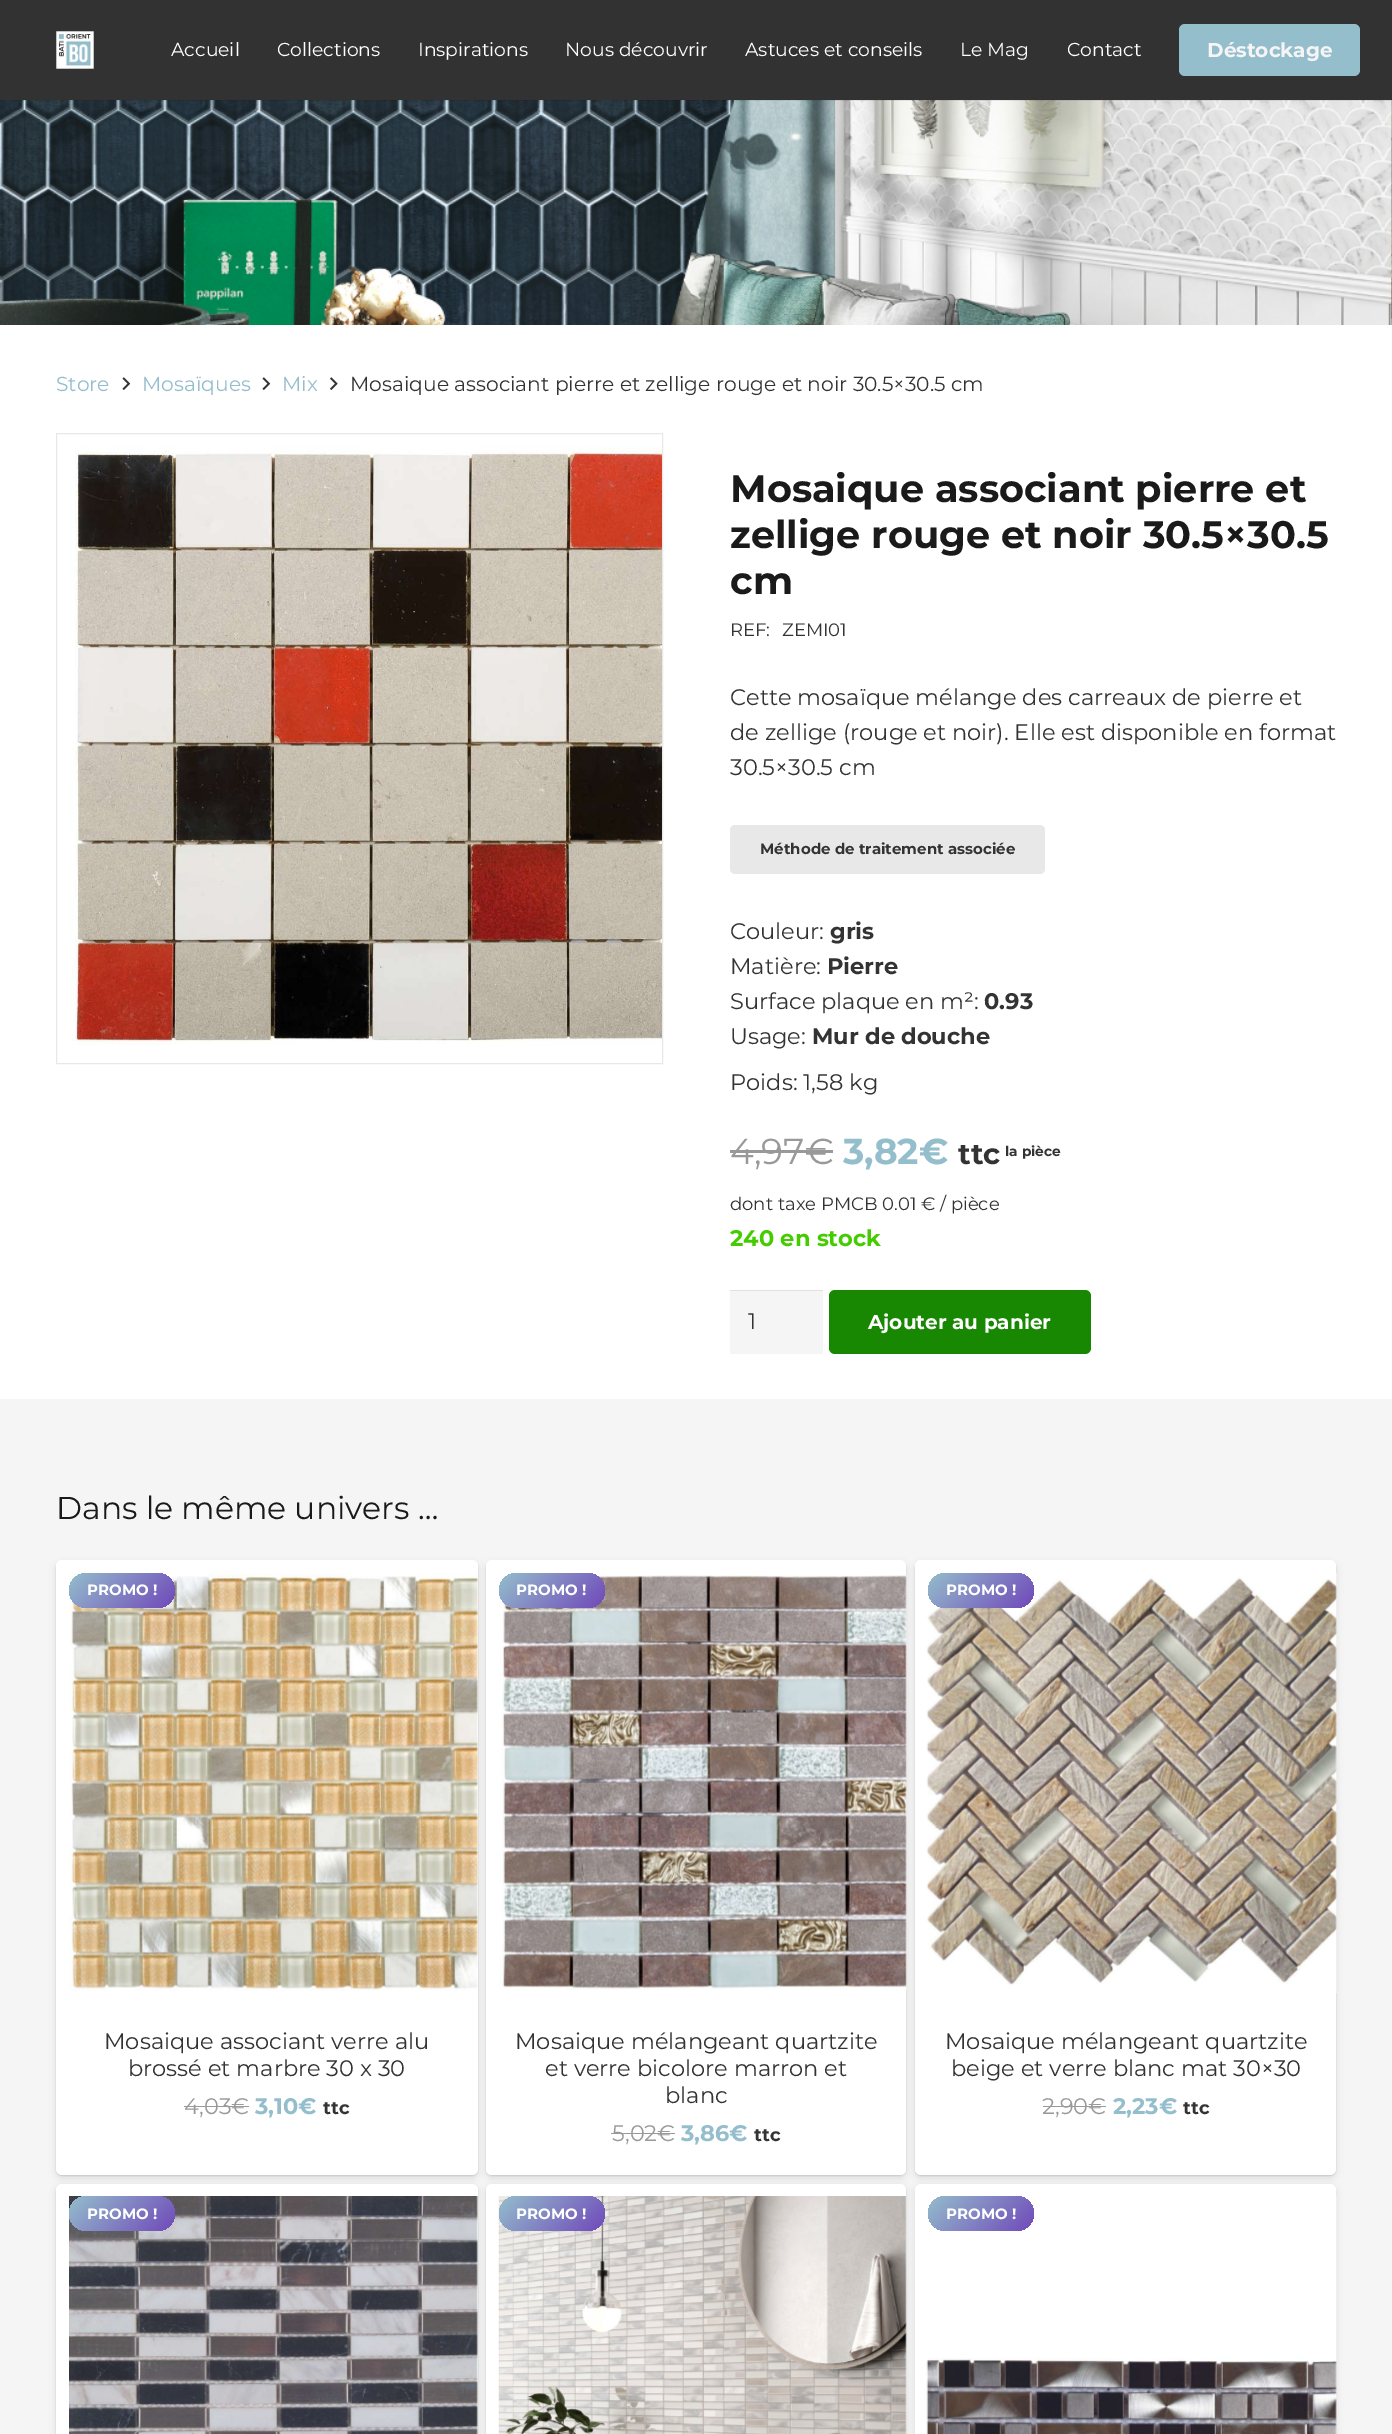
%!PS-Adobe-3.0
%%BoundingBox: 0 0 1392 2434
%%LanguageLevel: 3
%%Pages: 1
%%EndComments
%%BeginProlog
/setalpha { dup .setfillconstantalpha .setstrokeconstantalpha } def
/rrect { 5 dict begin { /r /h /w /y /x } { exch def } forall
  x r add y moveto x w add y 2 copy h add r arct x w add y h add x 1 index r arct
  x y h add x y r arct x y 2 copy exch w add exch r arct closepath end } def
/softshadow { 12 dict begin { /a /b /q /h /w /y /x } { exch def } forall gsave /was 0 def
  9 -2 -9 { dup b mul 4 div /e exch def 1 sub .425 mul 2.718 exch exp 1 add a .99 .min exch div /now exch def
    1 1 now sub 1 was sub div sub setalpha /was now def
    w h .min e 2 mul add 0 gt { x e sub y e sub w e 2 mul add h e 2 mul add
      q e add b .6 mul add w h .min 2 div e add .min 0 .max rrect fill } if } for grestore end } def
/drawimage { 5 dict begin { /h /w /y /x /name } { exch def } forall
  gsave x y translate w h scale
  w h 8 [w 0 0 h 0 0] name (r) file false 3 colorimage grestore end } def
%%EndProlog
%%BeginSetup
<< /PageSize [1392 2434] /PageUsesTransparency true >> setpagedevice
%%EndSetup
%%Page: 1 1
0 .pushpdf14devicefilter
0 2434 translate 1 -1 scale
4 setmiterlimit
1 setgray
0 0 1392 2434 rectfill
(images/2.raw) 0 100 1392 225 drawimage
0.08 setalpha
0 setgray
newpath 0 100 moveto 0 101 lineto 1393 101 lineto 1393 1 lineto 1392 1 lineto 1392 100 lineto closepath fill
1 setalpha
0.196 setgray
0 0 1392 100 rectfill
(images/1.raw) 56 31 38 38 drawimage
0.58 0.745 0.8 setrgbcolor
1179 24 181 52 6 rrect fill
(images/3.raw) 122 377 9 13 drawimage
(images/3.raw) 262 377 9 13 drawimage
(images/4.raw) 330 377 8 13 drawimage
0.91 setgray
56.5 433.5 606 630 rectstroke
(images/5.raw) 70 446 592 599 drawimage
730 825 315 49 5 rrect fill
0.6 setgray
730 1150 103 3 rectfill
0.961 setgray
730 1291 93 63 rectfill
0.882 setgray
730 1290 93 1 rectfill
0.094 0.533 0.012 setrgbcolor
829 1290 262 64 6 rrect fill
0.961 setgray
0 1399 1392 1035 rectfill
0 setgray
56 1563 422 615 6 3.5 0.1 softshadow
56 1561 422 615 6 0.5 0.1 softshadow
1 setgray
56 1560 422 615 6 rrect fill
(images/6.raw) 69 1573 409 418 drawimage
gsave 69 1573 106 35 17.5 rrect clip newpath
<< /ShadingType 2 /ColorSpace /DeviceRGB /Coords [87 1555 157 1625] /Extend [true true] /Function << /FunctionType 2 /Domain [0 1] /C0 [0.58 0.745 0.8] /C1 [0.439 0.286 0.729] /N 1 >> >> shfill grestore
0.6 setgray
184 2106 65 1 rectfill
0 setgray
486 1563 420 615 6 3.5 0.1 softshadow
486 1561 420 615 6 0.5 0.1 softshadow
1 setgray
486 1560 420 615 6 rrect fill
(images/7.raw) 499 1575 408 415 drawimage
gsave 499 1573 106 35 17.5 rrect clip newpath
<< /ShadingType 2 /ColorSpace /DeviceRGB /Coords [517 1555 587 1625] /Extend [true true] /Function << /FunctionType 2 /Domain [0 1] /C0 [0.58 0.745 0.8] /C1 [0.439 0.286 0.729] /N 1 >> >> shfill grestore
0 setgray
915 1563 421 615 6 3.5 0.1 softshadow
56 2186 422 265 6 3.5 0.1 softshadow
915 1561 421 615 6 0.5 0.1 softshadow
1 setgray
915 1560 421 615 6 rrect fill
0 setgray
56 2185 422 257 6 0.5 0.1 softshadow
1 setgray
56 2184 422 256 6 rrect fill
(images/9.raw) 69 2196 409 238 drawimage
0 setgray
486 2186 420 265 6 3.5 0.1 softshadow
486 2185 420 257 6 0.5 0.1 softshadow
1 setgray
486 2184 420 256 6 rrect fill
(images/10.raw) 498 2196 409 238 drawimage
0 setgray
915 2186 421 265 6 3.5 0.1 softshadow
1 setgray
newpath 486 2006 moveto 906 2006 lineto 906 2169 lineto 906 2172.5 903.5 2175 900 2175 curveto 492 2175 lineto 488.5 2175 486 2172.5 486 2169 curveto closepath fill
0.6 setgray
611 2133 47 1 rectfill
658 2133 17 1 rectfill
(images/8.raw) 926 1573 411 420 drawimage
gsave 928 1573 106 35 17.5 rrect clip newpath
<< /ShadingType 2 /ColorSpace /DeviceRGB /Coords [945 1555 1016 1625] /Extend [true true] /Function << /FunctionType 2 /Domain [0 1] /C0 [0.58 0.745 0.8] /C1 [0.439 0.286 0.729] /N 1 >> >> shfill grestore
1043 2106 63 1 rectfill
gsave 69 2196 106 35 17.5 rrect clip newpath
<< /ShadingType 2 /ColorSpace /DeviceRGB /Coords [87 2178 157 2249] /Extend [true true] /Function << /FunctionType 2 /Domain [0 1] /C0 [0.58 0.745 0.8] /C1 [0.439 0.286 0.729] /N 1 >> >> shfill grestore
gsave 499 2196 106 35 17.5 rrect clip newpath
<< /ShadingType 2 /ColorSpace /DeviceRGB /Coords [517 2178 587 2249] /Extend [true true] /Function << /FunctionType 2 /Domain [0 1] /C0 [0.58 0.745 0.8] /C1 [0.439 0.286 0.729] /N 1 >> >> shfill grestore
1 setgray
915 2184 421 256 6 rrect fill
(images/11.raw) 926 2196 411 238 drawimage
gsave 928 2196 106 35 17.5 rrect clip newpath
<< /ShadingType 2 /ColorSpace /DeviceRGB /Coords [945 2178 1016 2249] /Extend [true true] /Function << /FunctionType 2 /Domain [0 1] /C0 [0.58 0.745 0.8] /C1 [0.439 0.286 0.729] /N 1 >> >> shfill grestore
/Montserrat-Regular [18.75 0 0 -18.75 0 0] selectfont
171 56 moveto (Accueil) show
277 56 moveto (Collections) show
418 56 moveto (Inspirations) show
565 56 moveto (Nous découvrir) show
745 56 moveto (Astuces et conseils) show
960 56 moveto (Le Mag) show
1067 56 moveto (Contact) show
/Montserrat-Bold [20 0 0 -20 0 0] selectfont
0.961 setgray
1207 57 moveto (Déstockage) show
/Montserrat-Regular [20.25 0 0 -20.25 0 0] selectfont
0.58 0.745 0.8 setrgbcolor
56 391 moveto (Store) show
142 391 moveto (Mosaïques) show
282 391 moveto (Mix) show
0.2 setgray
350 391 moveto (Mosaique associant pierre et zellige rouge et noir 30.5×30.5 cm) show
/Montserrat-Bold [38.25 0 0 -38.25 0 0] selectfont
0.102 setgray
730 502 moveto (Mosaique associant pierre et) show
730 548 moveto (zellige rouge et noir 30.5×30.5) show
730 594 moveto (cm) show
/Montserrat-Regular [18 0 0 -18 0 0] selectfont
0.2 setgray
730 636 moveto (REF:) show
782 636 moveto (ZEMI01) show
/Montserrat-Regular [22.5 0 0 -22.5 0 0] selectfont
730 705 moveto (Cette mosaïque mélange des carreaux de pierre et) show
730 740 moveto (de zellige \(rouge et noir\). Elle est disponible en format) show
730 775 moveto (30.5×30.5 cm) show
/Montserrat-Bold [15 0 0 -15 0 0] selectfont
760 854 moveto (Méthode de traitement associée) show
/Montserrat-Regular [22.5 0 0 -22.5 0 0] selectfont
730 939 moveto (Couleur:) show
/Montserrat-Bold [22.5 0 0 -22.5 0 0] selectfont
830 939 moveto (gris) show
/Montserrat-Regular [22.5 0 0 -22.5 0 0] selectfont
730 974 moveto (Matière:) show
/Montserrat-Bold [22.5 0 0 -22.5 0 0] selectfont
827 974 moveto (Pierre) show
/Montserrat-Regular [22.5 0 0 -22.5 0 0] selectfont
730 1009 moveto (Surface plaque en m²:) show
/Montserrat-Bold [22.5 0 0 -22.5 0 0] selectfont
984 1009 moveto (0.93) show
/Montserrat-Regular [22.5 0 0 -22.5 0 0] selectfont
730 1044 moveto (Usage:) show
/Montserrat-Bold [22.5 0 0 -22.5 0 0] selectfont
812 1044 moveto (Mur de douche) show
/Montserrat-Regular [22.5 0 0 -22.5 0 0] selectfont
730 1090 moveto (Poids: 1,58 kg) show
/Montserrat-Regular [36 0 0 -36 0 0] selectfont
0.6 setgray
730 1164 moveto (4,97€) show
/Montserrat-Bold [36 0 0 -36 0 0] selectfont
0.58 0.745 0.8 setrgbcolor
843 1164 moveto (3,82€) show
/Montserrat-Bold [29 0 0 -29 0 0] selectfont
0.2 setgray
958 1164 moveto (ttc) show
/Montserrat-Bold [13.75 0 0 -13.75 0 0] selectfont
1005 1156 moveto (la pièce) show
/Montserrat-Regular [18 0 0 -18 0 0] selectfont
730 1210 moveto (dont taxe PMCB 0.01 € / pièce) show
/Montserrat-Bold [22.5 0 0 -22.5 0 0] selectfont
0.267 0.8 0 setrgbcolor
730 1246 moveto (240 en stock) show
/Montserrat-Regular [22.5 0 0 -22.5 0 0] selectfont
0.2 setgray
748 1329 moveto (1) show
/Montserrat-Bold [20 0 0 -20 0 0] selectfont
1 setgray
868 1329 moveto (Ajouter au panier) show
/Montserrat-Regular [31.5 0 0 -31.5 0 0] selectfont
0.102 setgray
56 1519 moveto (Dans le même univers …) show
/Montserrat-Bold [15 0 0 -15 0 0] selectfont
1 setgray
87 1595 moveto (PROMO !) show
/Montserrat-Regular [22.5 0 0 -22.5 0 0] selectfont
0.2 setgray
104 2049 moveto (Mosaique associant verre alu) show
128 2076 moveto (brossé et marbre 30 x 30) show
0.6 setgray
184 2114 moveto (4,03€) show
/Montserrat-Bold [22.5 0 0 -22.5 0 0] selectfont
0.58 0.745 0.8 setrgbcolor
255 2114 moveto (3,10€) show
/Montserrat-Bold [18 0 0 -18 0 0] selectfont
0.2 setgray
323 2114 moveto (ttc) show
/Montserrat-Bold [15 0 0 -15 0 0] selectfont
1 setgray
516 1595 moveto (PROMO !) show
/Montserrat-Regular [22.5 0 0 -22.5 0 0] selectfont
0.2 setgray
515 2049 moveto (Mosaique mélangeant quartzite) show
545 2076 moveto (et verre bicolore marron et) show
665 2103 moveto (blanc) show
0.6 setgray
612 2141 moveto (5,02) show
657 2141 moveto (€) show
/Montserrat-Bold [22.5 0 0 -22.5 0 0] selectfont
0.58 0.745 0.8 setrgbcolor
681 2141 moveto (3,86€) show
/Montserrat-Bold [18 0 0 -18 0 0] selectfont
0.2 setgray
754 2141 moveto (ttc) show
/Montserrat-Bold [15 0 0 -15 0 0] selectfont
1 setgray
946 1595 moveto (PROMO !) show
/Montserrat-Regular [22.5 0 0 -22.5 0 0] selectfont
0.2 setgray
945 2049 moveto (Mosaique mélangeant quartzite) show
951 2076 moveto (beige et verre blanc mat 30×30) show
0.6 setgray
1042 2114 moveto (2,90€) show
/Montserrat-Bold [22.5 0 0 -22.5 0 0] selectfont
0.58 0.745 0.8 setrgbcolor
1113 2114 moveto (2,23€) show
/Montserrat-Bold [18 0 0 -18 0 0] selectfont
0.2 setgray
1183 2114 moveto (ttc) show
/Montserrat-Bold [15 0 0 -15 0 0] selectfont
1 setgray
87 2219 moveto (PROMO !) show
516 2219 moveto (PROMO !) show
946 2219 moveto (PROMO !) show
.poppdf14devicefilter showpage
%%EOF
